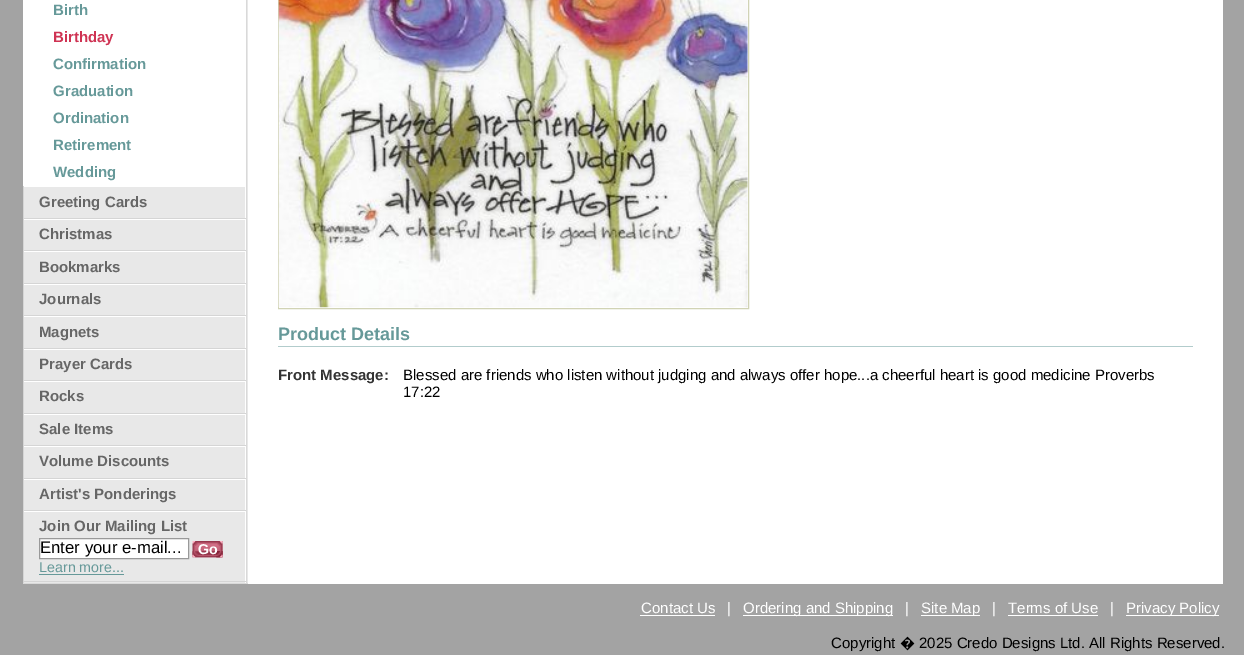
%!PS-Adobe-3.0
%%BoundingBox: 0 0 1244 655
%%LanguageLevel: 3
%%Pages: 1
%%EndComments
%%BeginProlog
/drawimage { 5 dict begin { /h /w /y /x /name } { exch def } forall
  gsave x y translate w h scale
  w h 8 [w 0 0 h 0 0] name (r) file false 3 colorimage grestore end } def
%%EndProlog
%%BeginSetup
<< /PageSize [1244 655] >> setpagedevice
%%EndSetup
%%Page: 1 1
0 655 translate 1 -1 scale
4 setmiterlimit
0.639 setgray
0 0 1244 655 rectfill
1 setgray
248 0 975 584 rectfill
0.91 setgray
24 0 224 583 rectfill
0.851 setgray
246 0 1 584 rectfill
23 583 225 1 rectfill
1 setgray
23 0 223 187 rectfill
245 186 1 33 rectfill
0.835 setgray
23 218 223 1 rectfill
23 186 1 33 rectfill
1 setgray
23 219 223 1 rectfill
245 219 1 32 rectfill
0.835 setgray
23 250 223 1 rectfill
23 219 1 32 rectfill
1 setgray
23 251 223 1 rectfill
245 251 1 33 rectfill
0.835 setgray
23 283 223 1 rectfill
23 251 1 33 rectfill
1 setgray
23 284 223 1 rectfill
245 284 1 32 rectfill
0.835 setgray
23 315 223 1 rectfill
23 284 1 32 rectfill
1 setgray
23 316 223 1 rectfill
245 316 1 33 rectfill
0.835 setgray
23 348 223 1 rectfill
23 316 1 33 rectfill
1 setgray
23 349 223 1 rectfill
245 349 1 32 rectfill
0.835 setgray
23 380 223 1 rectfill
23 349 1 32 rectfill
1 setgray
23 381 223 1 rectfill
245 381 1 33 rectfill
0.835 setgray
23 413 223 1 rectfill
23 381 1 33 rectfill
1 setgray
23 414 223 1 rectfill
245 414 1 32 rectfill
0.835 setgray
23 445 223 1 rectfill
23 414 1 32 rectfill
1 setgray
23 446 223 1 rectfill
245 446 1 33 rectfill
0.835 setgray
23 478 223 1 rectfill
23 446 1 33 rectfill
1 setgray
23 479 223 1 rectfill
245 479 1 32 rectfill
0.835 setgray
23 510 223 1 rectfill
23 479 1 32 rectfill
1 setgray
23 511 223 1 rectfill
245 511 1 72 rectfill
0.835 setgray
23 581 223 1 rectfill
23 511 1 72 rectfill
1 setgray
newpath 39.5 538.5 moveto 188.5 538.5 lineto 188.5 558.5 lineto 39.5 558.5 lineto closepath gsave fill grestore
0.6 setgray
stroke
(images/1.raw) 192 541 31 17 drawimage
(images/2.raw) 216 541 7 17 drawimage
(images/3.raw) 192 551 31 7 drawimage
(images/4.raw) 216 551 7 7 drawimage
0.4 0.6 0.6 setrgbcolor
39 574 85 1 rectfill
0.82 0.827 0.71 setrgbcolor
278.5 -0.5 470 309 rectstroke
(images/5.raw) 278 0 470 308 drawimage
0.698 0.8 0.8 setrgbcolor
278 346 915 1 rectfill
1 setgray
640 615 75 1 rectfill
743 615 150 1 rectfill
921 615 59 1 rectfill
1008 615 90 1 rectfill
1126 615 93 1 rectfill
/LiberationSans-Bold [15 0 0 -15 0 0] selectfont
0.4 0.6 0.6 setrgbcolor
53 15 moveto (Birth) show
0.812 0.2 0.325 setrgbcolor
53 42 moveto (Birthday) show
0.4 0.6 0.6 setrgbcolor
53 69 moveto (Confirmation) show
53 96 moveto (Graduation) show
53 123 moveto (Ordination) show
53 150 moveto (Retirement) show
53 177 moveto (Wedding) show
0.4 setgray
39 207 moveto (Greeting Cards) show
39 239 moveto (Christmas) show
39 272 moveto (Bookmarks) show
39 304 moveto (Journals) show
39 337 moveto (Magnets) show
39 369 moveto (Prayer Cards) show
39 401 moveto (Rocks) show
39 434 moveto (Sale Items) show
39 466 moveto (Volume Discounts) show
39 499 moveto (Artist's Ponderings) show
39 531 moveto (Join Our Mailing List) show
/LiberationSans-Regular [16.75 0 0 -16.75 0 0] selectfont
0 setgray
40 553 moveto (Enter your e-mail...) show
/LiberationSans-Bold [14.25 0 0 -14.25 0 0] selectfont
1 setgray
198 554 moveto (Go) show
/LiberationSans-Regular [14.25 0 0 -14.25 0 0] selectfont
0.4 0.6 0.6 setrgbcolor
39 572 moveto (Learn more...) show
/LiberationSans-Bold [18 0 0 -18 0 0] selectfont
278 340 moveto (Product Details) show
/LiberationSans-Bold [15 0 0 -15 0 0] selectfont
0.2 setgray
278 380 moveto (Front Message:) show
/LiberationSans-Regular [15 0 0 -15 0 0] selectfont
0 setgray
403 380 moveto (Blessed are friends who listen without judging and always offer hope...a cheerful heart is good medicine Proverbs) show
403 397 moveto (17:22) show
1 setgray
641 613 moveto (Contact Us) show
727 613 moveto (|) show
743 613 moveto (Ordering and Shipping) show
905 613 moveto (|) show
921 613 moveto (Site Map) show
992 613 moveto (|) show
1008 613 moveto (Terms of Use) show
1110 613 moveto (|) show
1126 613 moveto (Privacy Policy) show
0 setgray
831 648 moveto (Copyright) show
/NotoSans-Regular [15 0 0 -15 0 0] selectfont
900 648 moveto (�) show
/LiberationSans-Regular [15 0 0 -15 0 0] selectfont
919 648 moveto (2025 Credo Designs Ltd. All Rights Reserved.) show
showpage
%%EOF
